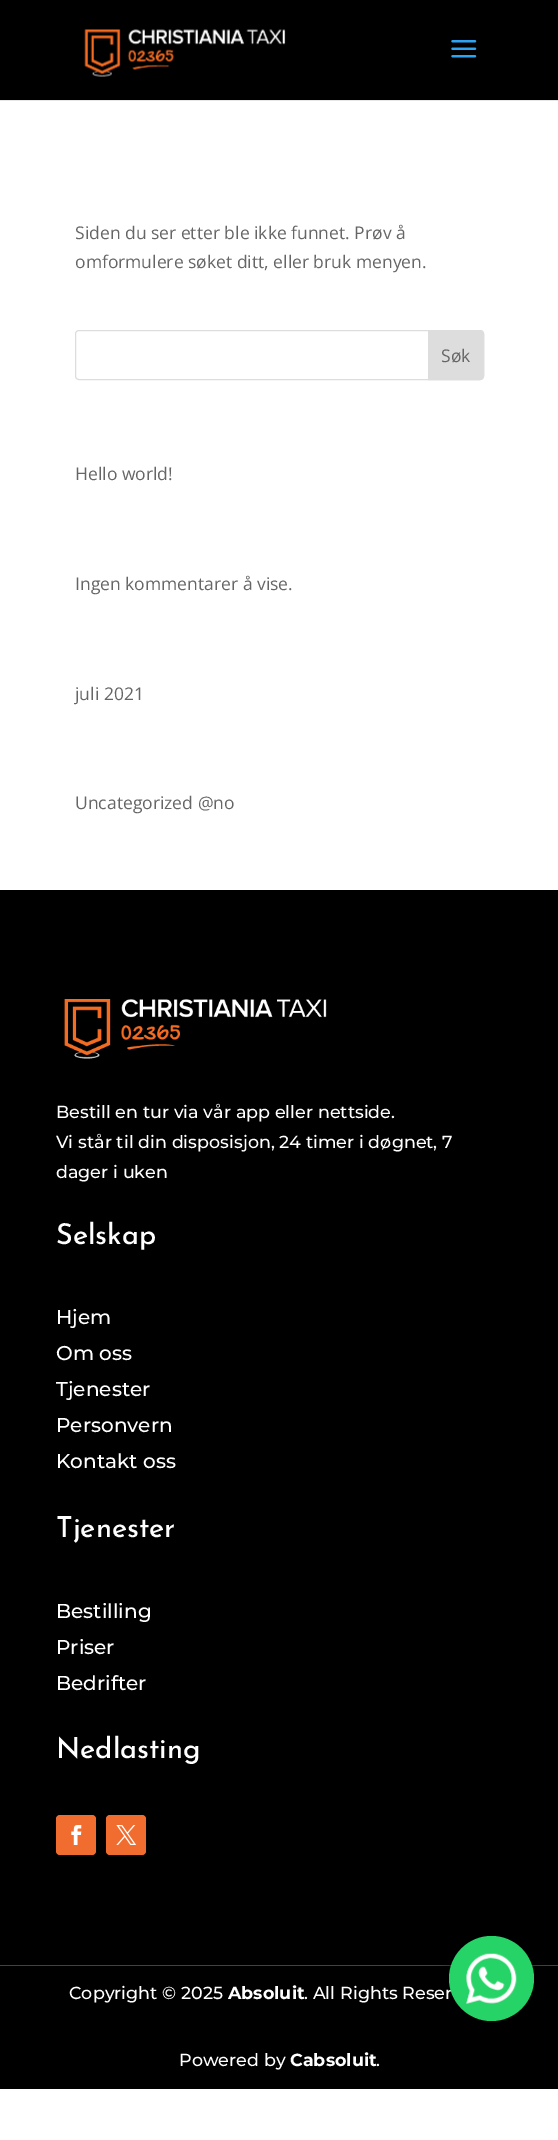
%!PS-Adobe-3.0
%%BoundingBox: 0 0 558 2140
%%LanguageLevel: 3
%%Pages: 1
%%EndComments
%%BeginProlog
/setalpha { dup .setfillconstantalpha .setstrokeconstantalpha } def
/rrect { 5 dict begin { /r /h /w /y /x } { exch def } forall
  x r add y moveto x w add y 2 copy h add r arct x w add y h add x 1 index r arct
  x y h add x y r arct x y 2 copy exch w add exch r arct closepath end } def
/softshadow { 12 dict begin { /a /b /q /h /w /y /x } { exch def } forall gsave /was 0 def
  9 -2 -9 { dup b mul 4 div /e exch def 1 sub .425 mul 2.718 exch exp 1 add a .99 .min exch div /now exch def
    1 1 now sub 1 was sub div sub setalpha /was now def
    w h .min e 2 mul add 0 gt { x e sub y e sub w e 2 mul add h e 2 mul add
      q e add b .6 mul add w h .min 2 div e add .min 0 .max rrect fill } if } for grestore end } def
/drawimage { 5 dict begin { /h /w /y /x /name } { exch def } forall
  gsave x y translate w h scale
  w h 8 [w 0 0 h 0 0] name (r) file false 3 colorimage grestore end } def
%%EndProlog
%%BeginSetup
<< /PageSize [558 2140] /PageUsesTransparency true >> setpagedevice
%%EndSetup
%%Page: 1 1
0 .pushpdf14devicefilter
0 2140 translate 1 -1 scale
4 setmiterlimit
1 setgray
0 0 558 2140 rectfill
0.902 setgray
newpath 0 100 moveto 0 101 lineto 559 101 lineto 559 1 lineto 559 100 lineto closepath fill
0 setgray
0 0 558 100 rectfill
(images/1.raw) 84 29 202 48 drawimage
(images/2.raw) 451 40 26 18 drawimage
0.867 setgray
75.5 330.5 408 49 3.5 rrect stroke
newpath 428.5 330.5 moveto 480 330.5 lineto 482 330.5 483.5 332 483.5 334 curveto 483.5 376 lineto 483.5 378 482 379.5 480 379.5 curveto 428.5 379.5 lineto closepath gsave fill grestore
stroke
0 setgray
0 890 558 1075 rectfill
(images/3.raw) 64 999 263 60 drawimage
0.941 0.427 0.184 setrgbcolor
56 1815 40 40 4 rrect fill
(images/4.raw) 71 1825 11 20 drawimage
106 1815 40 40 4 rrect fill
(images/5.raw) 116 1825 21 20 drawimage
0 setgray
0 1966 558 123 rectfill
0.212 0.275 0.302 setrgbcolor
0 1965 558 1 rectfill
0 setgray
449 1936 85 85 42.5 7 0.5 softshadow
/OpenSans-Regular [17.5 0 0 -17.5 0 0] selectfont
0.4 setgray
75 239 moveto (Siden du ser etter ble ikke funnet. Prøv å) show
75 268 moveto (omformulere søket ditt, eller bruk menyen.) show
441 362 moveto (Søk) show
75 480 moveto (Hello world!) show
75 590 moveto (Ingen kommentarer å vise.) show
75 700 moveto (juli 2021) show
75 809 moveto (Uncategorized @no) show
/Montserrat-Medium [17.5 0 0 -17.5 0 0] selectfont
1 setgray
56 1118 moveto (Bestill en tur via vår app eller nettside.) show
56 1148 moveto (Vi står til din disposisjon, 24 timer i døgnet, 7) show
56 1178 moveto (dager i uken) show
/JosefinSans-Medium [28.75 0 0 -28.75 0 0] selectfont
56 1244 moveto (Selskap) show
/Montserrat-Medium [20 0 0 -20 0 0] selectfont
56 1324 moveto (Hjem) show
56 1360 moveto (Om oss) show
56 1396 moveto (Tjenester) show
56 1432 moveto (Personvern) show
56 1468 moveto (Kontakt oss) show
/JosefinSans-Medium [28.75 0 0 -28.75 0 0] selectfont
56 1537 moveto (Tjenester) show
/Montserrat-Medium [20 0 0 -20 0 0] selectfont
56 1618 moveto (Bestilling) show
56 1654 moveto (Priser) show
56 1690 moveto (Bedrifter) show
/JosefinSans-Medium [28.75 0 0 -28.75 0 0] selectfont
56 1758 moveto (Nedlasting) show
/Montserrat-Medium [17.5 0 0 -17.5 0 0] selectfont
69 1999 moveto (Copyright © 2025) show
/Montserrat-Bold [17.5 0 0 -17.5 0 0] selectfont
228 1999 moveto (Absoluit) show
/Montserrat-Medium [17.5 0 0 -17.5 0 0] selectfont
304 1999 moveto (. All Rights Reser) show
179 2066 moveto (Powered by) show
/Montserrat-Bold [17.5 0 0 -17.5 0 0] selectfont
290 2066 moveto (Cabsoluit) show
/Montserrat-Medium [17.5 0 0 -17.5 0 0] selectfont
376 2066 moveto (.) show
0.145 0.827 0.4 setrgbcolor
newpath 491.5 1978.5 42.5 0 360 arc closepath fill
(images/6.raw) 466 1953 51 51 drawimage
.poppdf14devicefilter showpage
%%EOF
